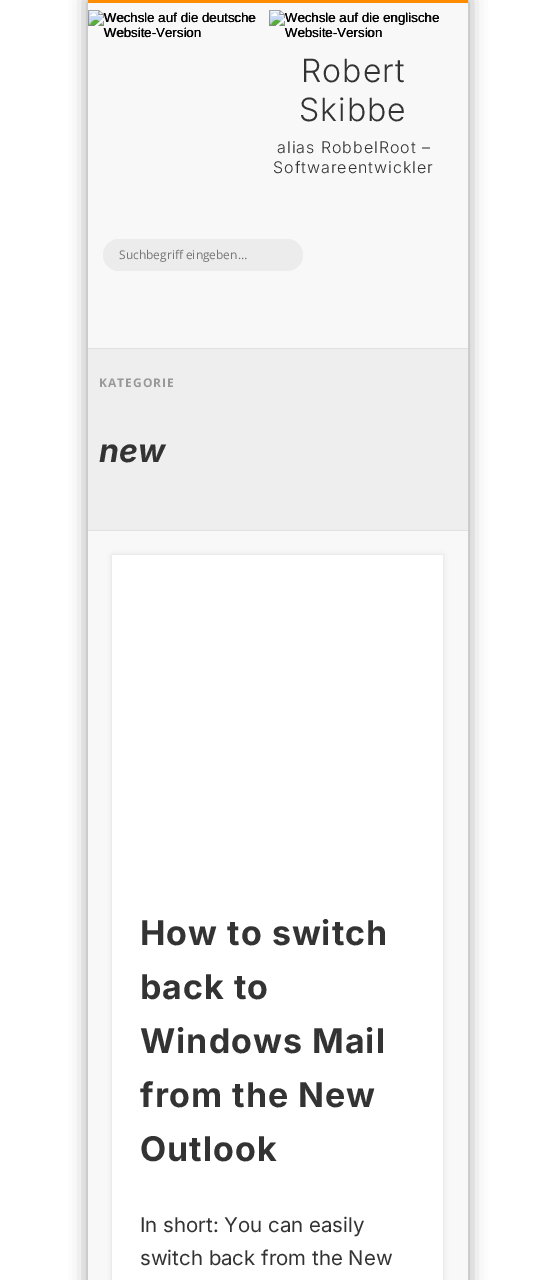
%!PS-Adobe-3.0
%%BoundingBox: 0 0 555 1280
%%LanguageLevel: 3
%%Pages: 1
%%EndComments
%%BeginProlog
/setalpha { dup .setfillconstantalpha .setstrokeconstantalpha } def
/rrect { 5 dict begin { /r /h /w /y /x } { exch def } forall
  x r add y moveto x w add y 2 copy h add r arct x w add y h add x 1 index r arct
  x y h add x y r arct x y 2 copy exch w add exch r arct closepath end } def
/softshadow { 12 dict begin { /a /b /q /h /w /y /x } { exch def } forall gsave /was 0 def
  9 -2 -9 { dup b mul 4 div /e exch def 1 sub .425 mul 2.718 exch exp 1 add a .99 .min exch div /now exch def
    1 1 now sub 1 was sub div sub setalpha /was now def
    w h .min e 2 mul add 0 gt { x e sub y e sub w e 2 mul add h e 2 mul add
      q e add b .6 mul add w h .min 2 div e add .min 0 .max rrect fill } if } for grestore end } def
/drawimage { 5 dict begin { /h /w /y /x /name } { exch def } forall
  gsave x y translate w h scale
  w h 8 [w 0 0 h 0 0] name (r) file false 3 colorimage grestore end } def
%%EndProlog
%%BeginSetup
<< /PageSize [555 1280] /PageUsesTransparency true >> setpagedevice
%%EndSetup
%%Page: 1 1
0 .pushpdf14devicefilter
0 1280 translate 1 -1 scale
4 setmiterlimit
1 setgray
0 0 555 1280 rectfill
0 setgray
88 0 380 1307 0 9 0.4 softshadow
0.973 setgray
88 3 380 1277 rectfill
(images/1.raw) 88 10 168 27 drawimage
(images/2.raw) 269 10 171 27 drawimage
1 0.549 0 setrgbcolor
88 0 380 3 rectfill
0.925 setgray
103 239 200 32 16 rrect fill
0.933 setgray
88 349 380 181 rectfill
0.882 setgray
88 348 380 1 rectfill
88 530 380 1 rectfill
0 setgray
112 555 331 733 0 2.5 0.1 softshadow
1 setgray
112 555 331 725 rectfill
/LiberationSans-Regular [13.25 0 0 -13.25 0 0] selectfont
0 setgray
104 22 moveto (Wechsle auf die deutsche) show
104 37 moveto (Website-Version) show
285 22 moveto (Wechsle auf die englische) show
285 37 moveto (Website-Version) show
/Inter-Light [32 0 0 -32 0 0] selectfont
0.2 setgray
301 82 moveto 1 0 (Robert) ashow
299 121 moveto 1 0 (Skibbe) ashow
/Inter-Light [16 0 0 -16 0 0] selectfont
277 153 moveto 1 0 (alias RobbelRoot –) ashow
273 173 moveto 1 0 (Softwareentwickler) ashow
/OpenSans-Regular [12 0 0 -12 0 0] selectfont
0.459 setgray
119 259 moveto (Suchbegriff eingeben…) show
/OpenSans-Bold [12 0 0 -12 0 0] selectfont
0.6 setgray
99 387 moveto 1 0 (KATEGORIE) ashow
/Inter-BoldItalic [32 0 0 -32 0 0] selectfont
0.2 setgray
99 462 moveto (new) show
/Inter-Bold [34 0 0 -34 0 0] selectfont
140 945 moveto 1 0 (How to switch) ashow
140 999 moveto 1 0 (back to) ashow
140 1053 moveto 1 0 (Windows Mail) ashow
140 1107 moveto 1 0 (from the New) ashow
140 1161 moveto 1 0 (Outlook) ashow
/Inter-Regular [20.4 0 0 -20.4 0 0] selectfont
140 1232 moveto (In short: You can easily) show
140 1265 moveto (switch back from the New) show
.poppdf14devicefilter showpage
%%EOF
